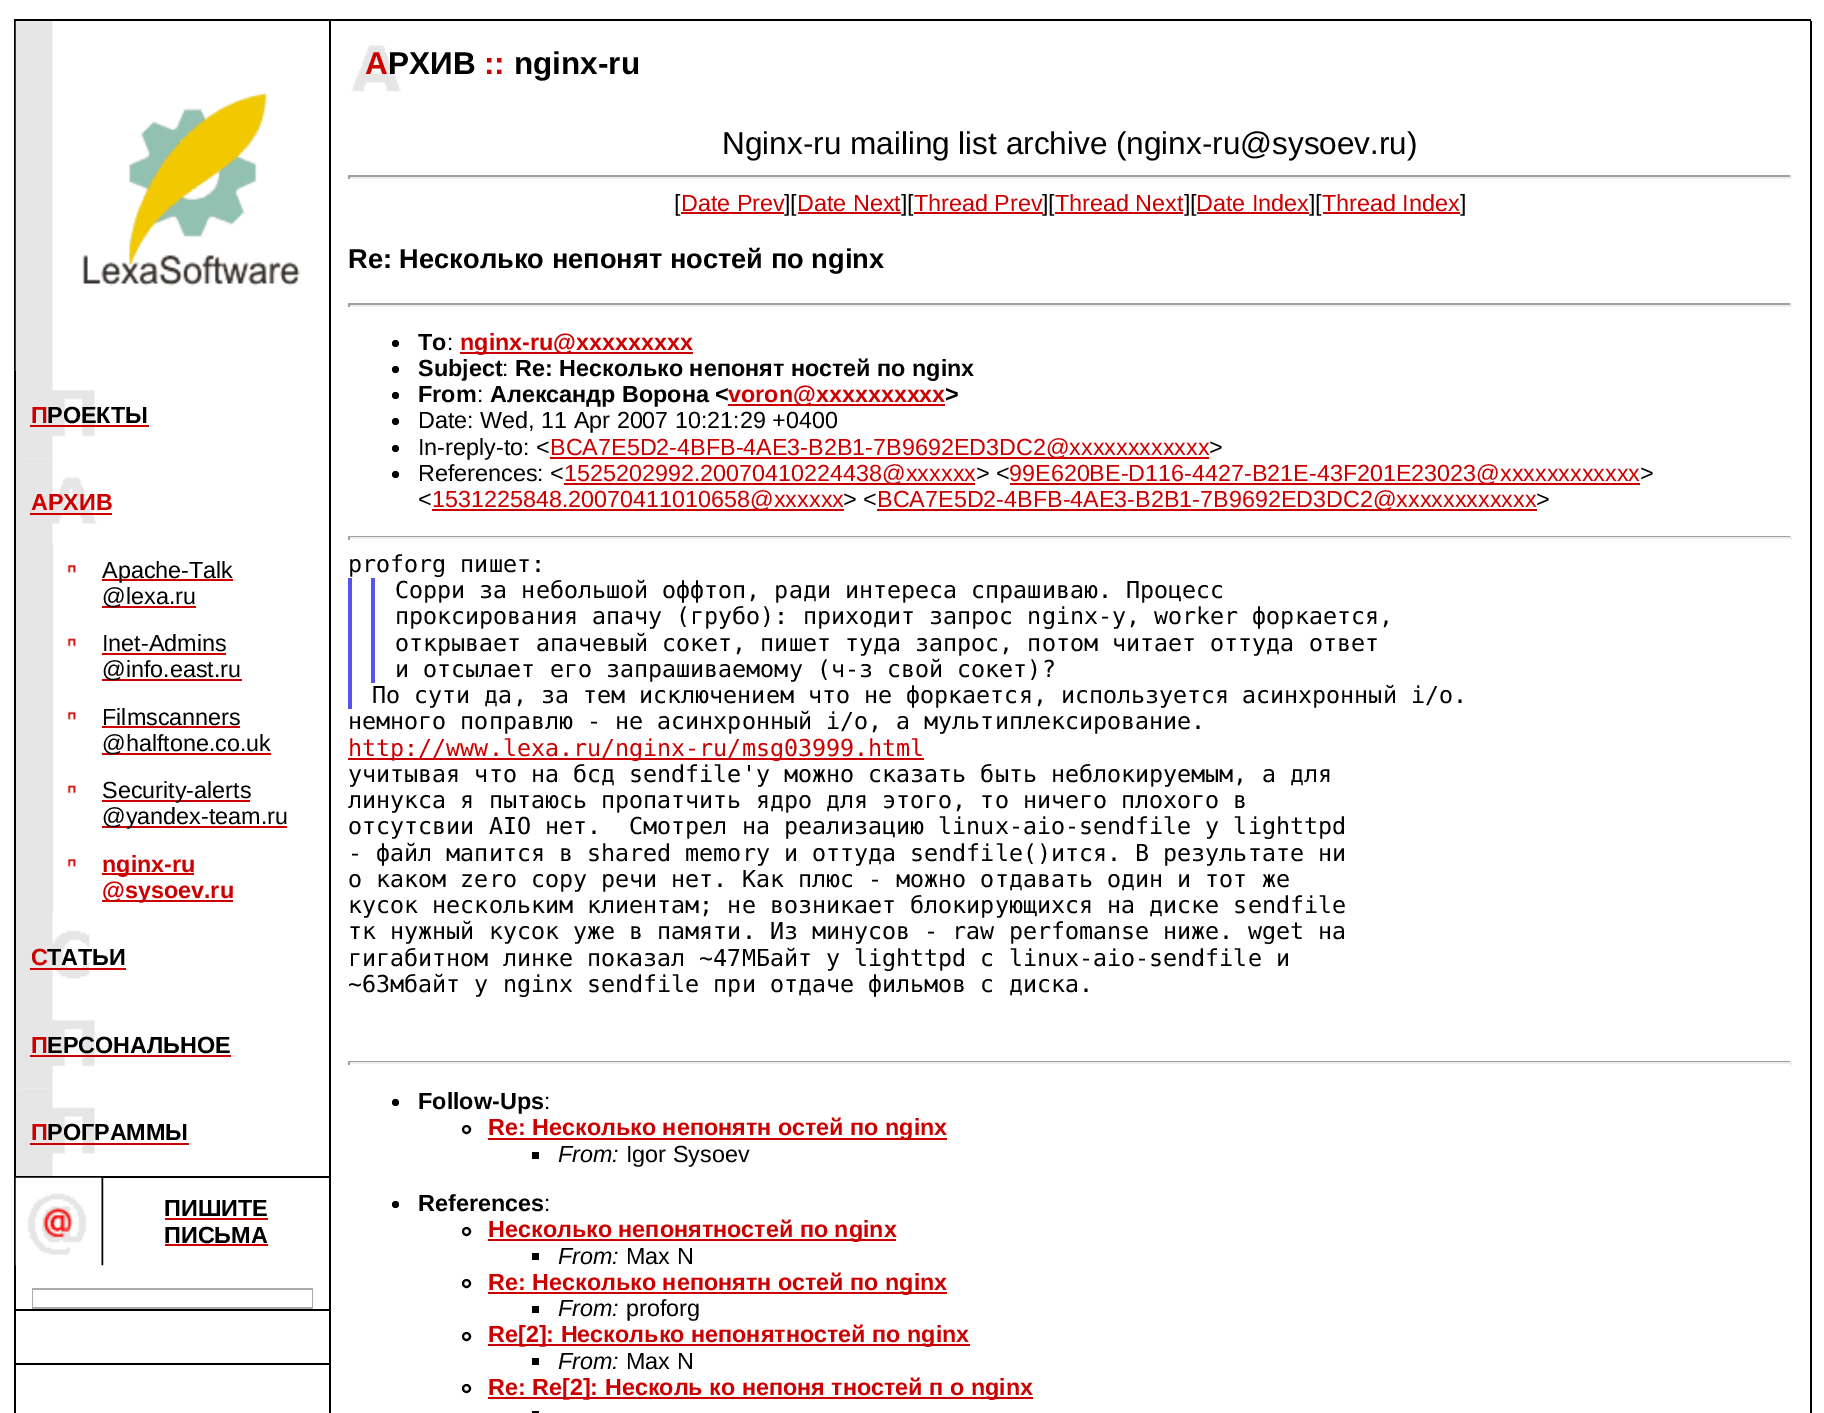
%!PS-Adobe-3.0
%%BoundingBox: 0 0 1824 1413
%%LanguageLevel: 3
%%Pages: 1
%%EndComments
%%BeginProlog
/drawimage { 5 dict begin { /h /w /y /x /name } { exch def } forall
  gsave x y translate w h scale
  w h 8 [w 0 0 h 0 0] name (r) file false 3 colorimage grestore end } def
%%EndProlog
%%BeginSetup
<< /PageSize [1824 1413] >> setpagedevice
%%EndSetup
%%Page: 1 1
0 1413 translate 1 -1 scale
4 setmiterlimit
1 setgray
0 0 1824 1413 rectfill
0 setgray
14 19 1797 2 rectfill
14 21 2 1392 rectfill
(images/1.raw) 15 21 285 350 drawimage
0.902 setgray
16 371 2 805 rectfill
(images/2.raw) 18 371 77 88 drawimage
0.8 0 0 setrgbcolor
30 425 119 2 rectfill
(images/3.raw) 18 458 79 88 drawimage
30 513 82 2 rectfill
0.902 setgray
18 546 35 368 rectfill
(images/4.raw) 67 564 9 9 drawimage
0.8 0 0 setrgbcolor
102 579 131 2 rectfill
102 606 94 2 rectfill
(images/5.raw) 67 638 9 9 drawimage
102 653 124 2 rectfill
102 679 140 2 rectfill
(images/4.raw) 67 711 9 9 drawimage
102 726 138 2 rectfill
102 753 169 2 rectfill
(images/5.raw) 67 785 9 9 drawimage
102 800 148 2 rectfill
102 826 185 2 rectfill
(images/4.raw) 67 858 9 9 drawimage
102 873 92 2 rectfill
102 900 131 2 rectfill
(images/6.raw) 18 913 72 88 drawimage
30 968 96 2 rectfill
(images/2.raw) 18 1001 77 88 drawimage
30 1055 201 2 rectfill
(images/7.raw) 18 1088 77 88 drawimage
30 1143 159 2 rectfill
0 setgray
16 1176 313 2 rectfill
(images/8.raw) 15 1177 89 89 drawimage
0.8 0 0 setrgbcolor
165 1218 103 2 rectfill
165 1244 103 2 rectfill
0.667 setgray
32 1288 281 21 rectfill
1 setgray
33 1290 279 17 rectfill
0 setgray
16 1309 313 2 rectfill
16 1363 313 2 rectfill
329 21 2 1392 rectfill
(images/9.raw) 351 45 50 47 drawimage
0.624 setgray
348 175 1444 2 rectfill
0.933 setgray
1790 175 2 4 rectfill
348 177 1444 2 rectfill
0.624 setgray
348 175 2 4 rectfill
0.8 0 0 setrgbcolor
681 212 103 2 rectfill
798 212 103 2 rectfill
914 212 129 2 rectfill
1055 212 128 2 rectfill
1197 212 112 2 rectfill
1323 212 137 2 rectfill
0.624 setgray
348 303 1444 2 rectfill
0.933 setgray
1790 303 2 4 rectfill
348 305 1444 2 rectfill
0.624 setgray
348 303 2 4 rectfill
0 setgray
newpath 395.5 343.5 3.5 0 360 arc closepath fill
0.8 0 0 setrgbcolor
460 352 233 2 rectfill
0 setgray
newpath 395.5 369.5 3.5 0 360 arc closepath fill
newpath 395.5 395.5 3.5 0 360 arc closepath fill
0.8 0 0 setrgbcolor
728 404 217 2 rectfill
0 setgray
newpath 395.5 421.5 3.5 0 360 arc closepath fill
newpath 395.5 448.5 3.5 0 360 arc closepath fill
0.8 0 0 setrgbcolor
550 457 659 2 rectfill
0 setgray
newpath 395.5 474.5 3.5 0 360 arc closepath fill
0.8 0 0 setrgbcolor
564 483 411 2 rectfill
1010 483 630 2 rectfill
432 509 412 2 rectfill
877 509 660 2 rectfill
0.624 setgray
348 536 1444 1 rectfill
0.933 setgray
1790 536 2 4 rectfill
348 537 1444 2 rectfill
0.624 setgray
348 536 2 4 rectfill
0.333 0.333 0.933 setrgbcolor
348 578 4 131 rectfill
371 578 4 105 rectfill
0.8 0 0 setrgbcolor
348 758 576 2 rectfill
0.624 setgray
348 1061 1444 1 rectfill
0.933 setgray
1790 1061 2 4 rectfill
348 1062 1444 2 rectfill
0.624 setgray
348 1061 2 4 rectfill
0 setgray
newpath 395.5 1102.5 3.5 0 360 arc closepath fill
2 setlinewidth
newpath 466.5 1129.5 3.5 0 360 arc closepath stroke
0.8 0 0 setrgbcolor
488 1138 459 2 rectfill
0 setgray
532 1152 7 7 rectfill
newpath 395.5 1204.5 3.5 0 360 arc closepath fill
newpath 466.5 1231.5 3.5 0 360 arc closepath stroke
0.8 0 0 setrgbcolor
488 1239 408 2 rectfill
0 setgray
532 1253 7 7 rectfill
newpath 466.5 1283.5 3.5 0 360 arc closepath stroke
0.8 0 0 setrgbcolor
488 1292 459 2 rectfill
0 setgray
532 1306 7 7 rectfill
newpath 466.5 1336.5 3.5 0 360 arc closepath stroke
0.8 0 0 setrgbcolor
488 1344 482 2 rectfill
0 setgray
532 1358 7 7 rectfill
newpath 466.5 1388.5 3.5 0 360 arc closepath stroke
0.8 0 0 setrgbcolor
488 1397 545 2 rectfill
0 setgray
532 1411 7 2 rectfill
1810 21 2 1392 rectfill
/LiberationSans-Bold [23.35 0 0 -23.35 0 0] selectfont
0.8 0 0 setrgbcolor
31 423 moveto (П) show
0 setgray
47 423 moveto (РОЕКТЫ) show
0.8 0 0 setrgbcolor
31 510 moveto (АРХИВ) show
/LiberationSans-Regular [23.35 0 0 -23.35 0 0] selectfont
0 setgray
102 578 moveto (Apache-Talk) show
102 604 moveto (@lexa.ru) show
102 651 moveto (Inet-Admins) show
102 677 moveto (@info.east.ru) show
102 725 moveto (Filmscanners) show
102 751 moveto (@halftone.co.uk) show
102 798 moveto (Security-alerts) show
102 824 moveto (@yandex-team.ru) show
/LiberationSans-Bold [23.35 0 0 -23.35 0 0] selectfont
0.8 0 0 setrgbcolor
102 872 moveto (nginx-ru) show
102 898 moveto (@sysoev.ru) show
31 965 moveto (С) show
0 setgray
47 965 moveto (ТАТЬИ) show
0.8 0 0 setrgbcolor
31 1053 moveto (П) show
0 setgray
47 1053 moveto (ЕРСОНАЛЬНОЕ) show
0.8 0 0 setrgbcolor
31 1140 moveto (П) show
0 setgray
47 1140 moveto (РОГРАММЫ) show
164 1216 moveto (ПИШИТЕ) show
164 1243 moveto (ПИСЬМА) show
/LiberationSans-Bold [31.5 0 0 -31.5 0 0] selectfont
0.8 0 0 setrgbcolor
365 74 moveto (А) show
0 setgray
388 74 moveto (РХИВ) show
0.8 0 0 setrgbcolor
484 74 moveto (::) show
0 setgray
514 74 moveto (nginx-ru) show
/LiberationSans-Regular [31.5 0 0 -31.5 0 0] selectfont
722 154 moveto (Nginx-ru mailing list archive \(nginx-ru@sysoev.ru\)) show
/LiberationSans-Regular [23.35 0 0 -23.35 0 0] selectfont
674 211 moveto ([) show
0.8 0 0 setrgbcolor
681 211 moveto (Date Prev) show
0 setgray
784 211 moveto (][) show
0.8 0 0 setrgbcolor
797 211 moveto (Date Next) show
0 setgray
901 211 moveto (][) show
0.8 0 0 setrgbcolor
914 211 moveto (Thread Prev) show
0 setgray
1042 211 moveto (][) show
0.8 0 0 setrgbcolor
1055 211 moveto (Thread Next) show
0 setgray
1184 211 moveto (][) show
0.8 0 0 setrgbcolor
1196 211 moveto (Date Index) show
0 setgray
1309 211 moveto (][) show
0.8 0 0 setrgbcolor
1322 211 moveto (Thread Index) show
0 setgray
1460 211 moveto (]) show
/LiberationSans-Bold [27.25 0 0 -27.25 0 0] selectfont
348 268 moveto (Re: Несколько непонят ностей по nginx) show
/LiberationSans-Bold [23.35 0 0 -23.35 0 0] selectfont
418 350 moveto (To) show
/LiberationSans-Regular [23.35 0 0 -23.35 0 0] selectfont
447 350 moveto (:) show
/LiberationSans-Bold [23.35 0 0 -23.35 0 0] selectfont
0.8 0 0 setrgbcolor
460 350 moveto (nginx-ru@xxxxxxxxx) show
0 setgray
418 376 moveto (Subject) show
/LiberationSans-Regular [23.35 0 0 -23.35 0 0] selectfont
502 376 moveto (:) show
/LiberationSans-Bold [23.35 0 0 -23.35 0 0] selectfont
515 376 moveto (Re: Несколько непонят ностей по nginx) show
418 402 moveto (From) show
/LiberationSans-Regular [23.35 0 0 -23.35 0 0] selectfont
477 402 moveto (:) show
/LiberationSans-Bold [23.35 0 0 -23.35 0 0] selectfont
490 402 moveto (Александр Ворона <) show
0.8 0 0 setrgbcolor
728 402 moveto (voron@xxxxxxxxxx) show
0 setgray
945 402 moveto (>) show
/LiberationSans-Regular [23.35 0 0 -23.35 0 0] selectfont
418 428 moveto (Date: Wed, 11 Apr 2007 10:21:29 +0400) show
418 455 moveto (In-reply-to: <) show
0.8 0 0 setrgbcolor
550 455 moveto (BCA7E5D2-4BFB-4AE3-B2B1-7B9692ED3DC2@xxxxxxxxxxxx) show
0 setgray
1209 455 moveto (>) show
418 481 moveto (References: <) show
0.8 0 0 setrgbcolor
564 481 moveto (1525202992.20070410224438@xxxxxx) show
0 setgray
976 481 moveto (> <) show
0.8 0 0 setrgbcolor
1009 481 moveto (99E620BE-D116-4427-B21E-43F201E23023@xxxxxxxxxxxx) show
0 setgray
1640 481 moveto (>) show
418 507 moveto (<) show
0.8 0 0 setrgbcolor
432 507 moveto (1531225848.20070411010658@xxxxxx) show
0 setgray
843 507 moveto (> <) show
0.8 0 0 setrgbcolor
877 507 moveto (BCA7E5D2-4BFB-4AE3-B2B1-7B9692ED3DC2@xxxxxxxxxxxx) show
0 setgray
1536 507 moveto (>) show
/DejaVuSansMono-Regular [23.35 0 0 -23.35 0 0] selectfont
348 572 moveto (proforg пишет:) show
395 598 moveto (Сорри за небольшой оффтоп, ради интереса спрашиваю. Процесс) show
395 624 moveto (проксирования апачу \(грубо\): приходит запрос nginx-у, worker форкается,) show
395 651 moveto (открывает апачевый сокет, пишет туда запрос, потом читает оттуда ответ) show
395 677 moveto (и отсылает его запрашиваемому \(ч-з свой сокет\)?) show
372 703 moveto (По сути да, за тем исключением что не форкается, используется) show
1242 703 moveto (асинхронный i/o.) show
348 729 moveto (немного поправлю - не асинхронный i/o, а мультиплексирование.) show
0.8 0 0 setrgbcolor
348 756 moveto (http://www.lexa.ru/nginx-ru/msg03999.html) show
0 setgray
348 782 moveto (учитывая что на бсд sendfile'у можно сказать быть неблокируемым, а для) show
348 808 moveto (линукса я пытаюсь пропатчить ядро для этого, то ничего плохого в) show
348 834 moveto (отсутсвии AIO нет.  Смотрел на реализацию linux-aio-sendfile у lighttpd) show
348 861 moveto (- файл мапится в shared memory и оттуда sendfile\(\)ится. В результате ни) show
348 887 moveto (о каком zero copy речи нет. Как плюс - можно отдавать один и тот же) show
348 913 moveto (кусок нескольким клиентам; не возникает блокирующихся на диске sendfile) show
348 939 moveto (тк нужный кусок уже в памяти. Из минусов - raw perfomanse ниже. wget на) show
348 966 moveto (гигабитном линке показал ~47МБайт у lighttpd с linux-aio-sendfile и) show
348 992 moveto (~63мбайт у nginx sendfile при отдаче фильмов с диска.) show
/LiberationSans-Bold [23.35 0 0 -23.35 0 0] selectfont
418 1109 moveto (Follow-Ups) show
/LiberationSans-Regular [23.35 0 0 -23.35 0 0] selectfont
544 1109 moveto (:) show
/LiberationSans-Bold [23.35 0 0 -23.35 0 0] selectfont
0.8 0 0 setrgbcolor
488 1135 moveto (Re: Несколько непонятн остей по nginx) show
/LiberationSans-Italic [23.35 0 0 -23.35 0 0] selectfont
0 setgray
558 1162 moveto (From:) show
/LiberationSans-Regular [23.35 0 0 -23.35 0 0] selectfont
626 1162 moveto (Igor Sysoev) show
/LiberationSans-Bold [23.35 0 0 -23.35 0 0] selectfont
418 1211 moveto (References) show
/LiberationSans-Regular [23.35 0 0 -23.35 0 0] selectfont
544 1211 moveto (:) show
/LiberationSans-Bold [23.35 0 0 -23.35 0 0] selectfont
0.8 0 0 setrgbcolor
488 1237 moveto (Несколько непонятностей по nginx) show
/LiberationSans-Italic [23.35 0 0 -23.35 0 0] selectfont
0 setgray
558 1264 moveto (From:) show
/LiberationSans-Regular [23.35 0 0 -23.35 0 0] selectfont
626 1264 moveto (Max N) show
/LiberationSans-Bold [23.35 0 0 -23.35 0 0] selectfont
0.8 0 0 setrgbcolor
488 1290 moveto (Re: Несколько непонятн остей по nginx) show
/LiberationSans-Italic [23.35 0 0 -23.35 0 0] selectfont
0 setgray
558 1316 moveto (From:) show
/LiberationSans-Regular [23.35 0 0 -23.35 0 0] selectfont
626 1316 moveto (proforg) show
/LiberationSans-Bold [23.35 0 0 -23.35 0 0] selectfont
0.8 0 0 setrgbcolor
488 1342 moveto (Re[2]: Несколько непонятностей по nginx) show
/LiberationSans-Italic [23.35 0 0 -23.35 0 0] selectfont
0 setgray
558 1369 moveto (From:) show
/LiberationSans-Regular [23.35 0 0 -23.35 0 0] selectfont
626 1369 moveto (Max N) show
/LiberationSans-Bold [23.35 0 0 -23.35 0 0] selectfont
0.8 0 0 setrgbcolor
488 1395 moveto (Re: Re[2]: Несколь ко непоня тностей п о nginx) show
showpage
%%EOF
